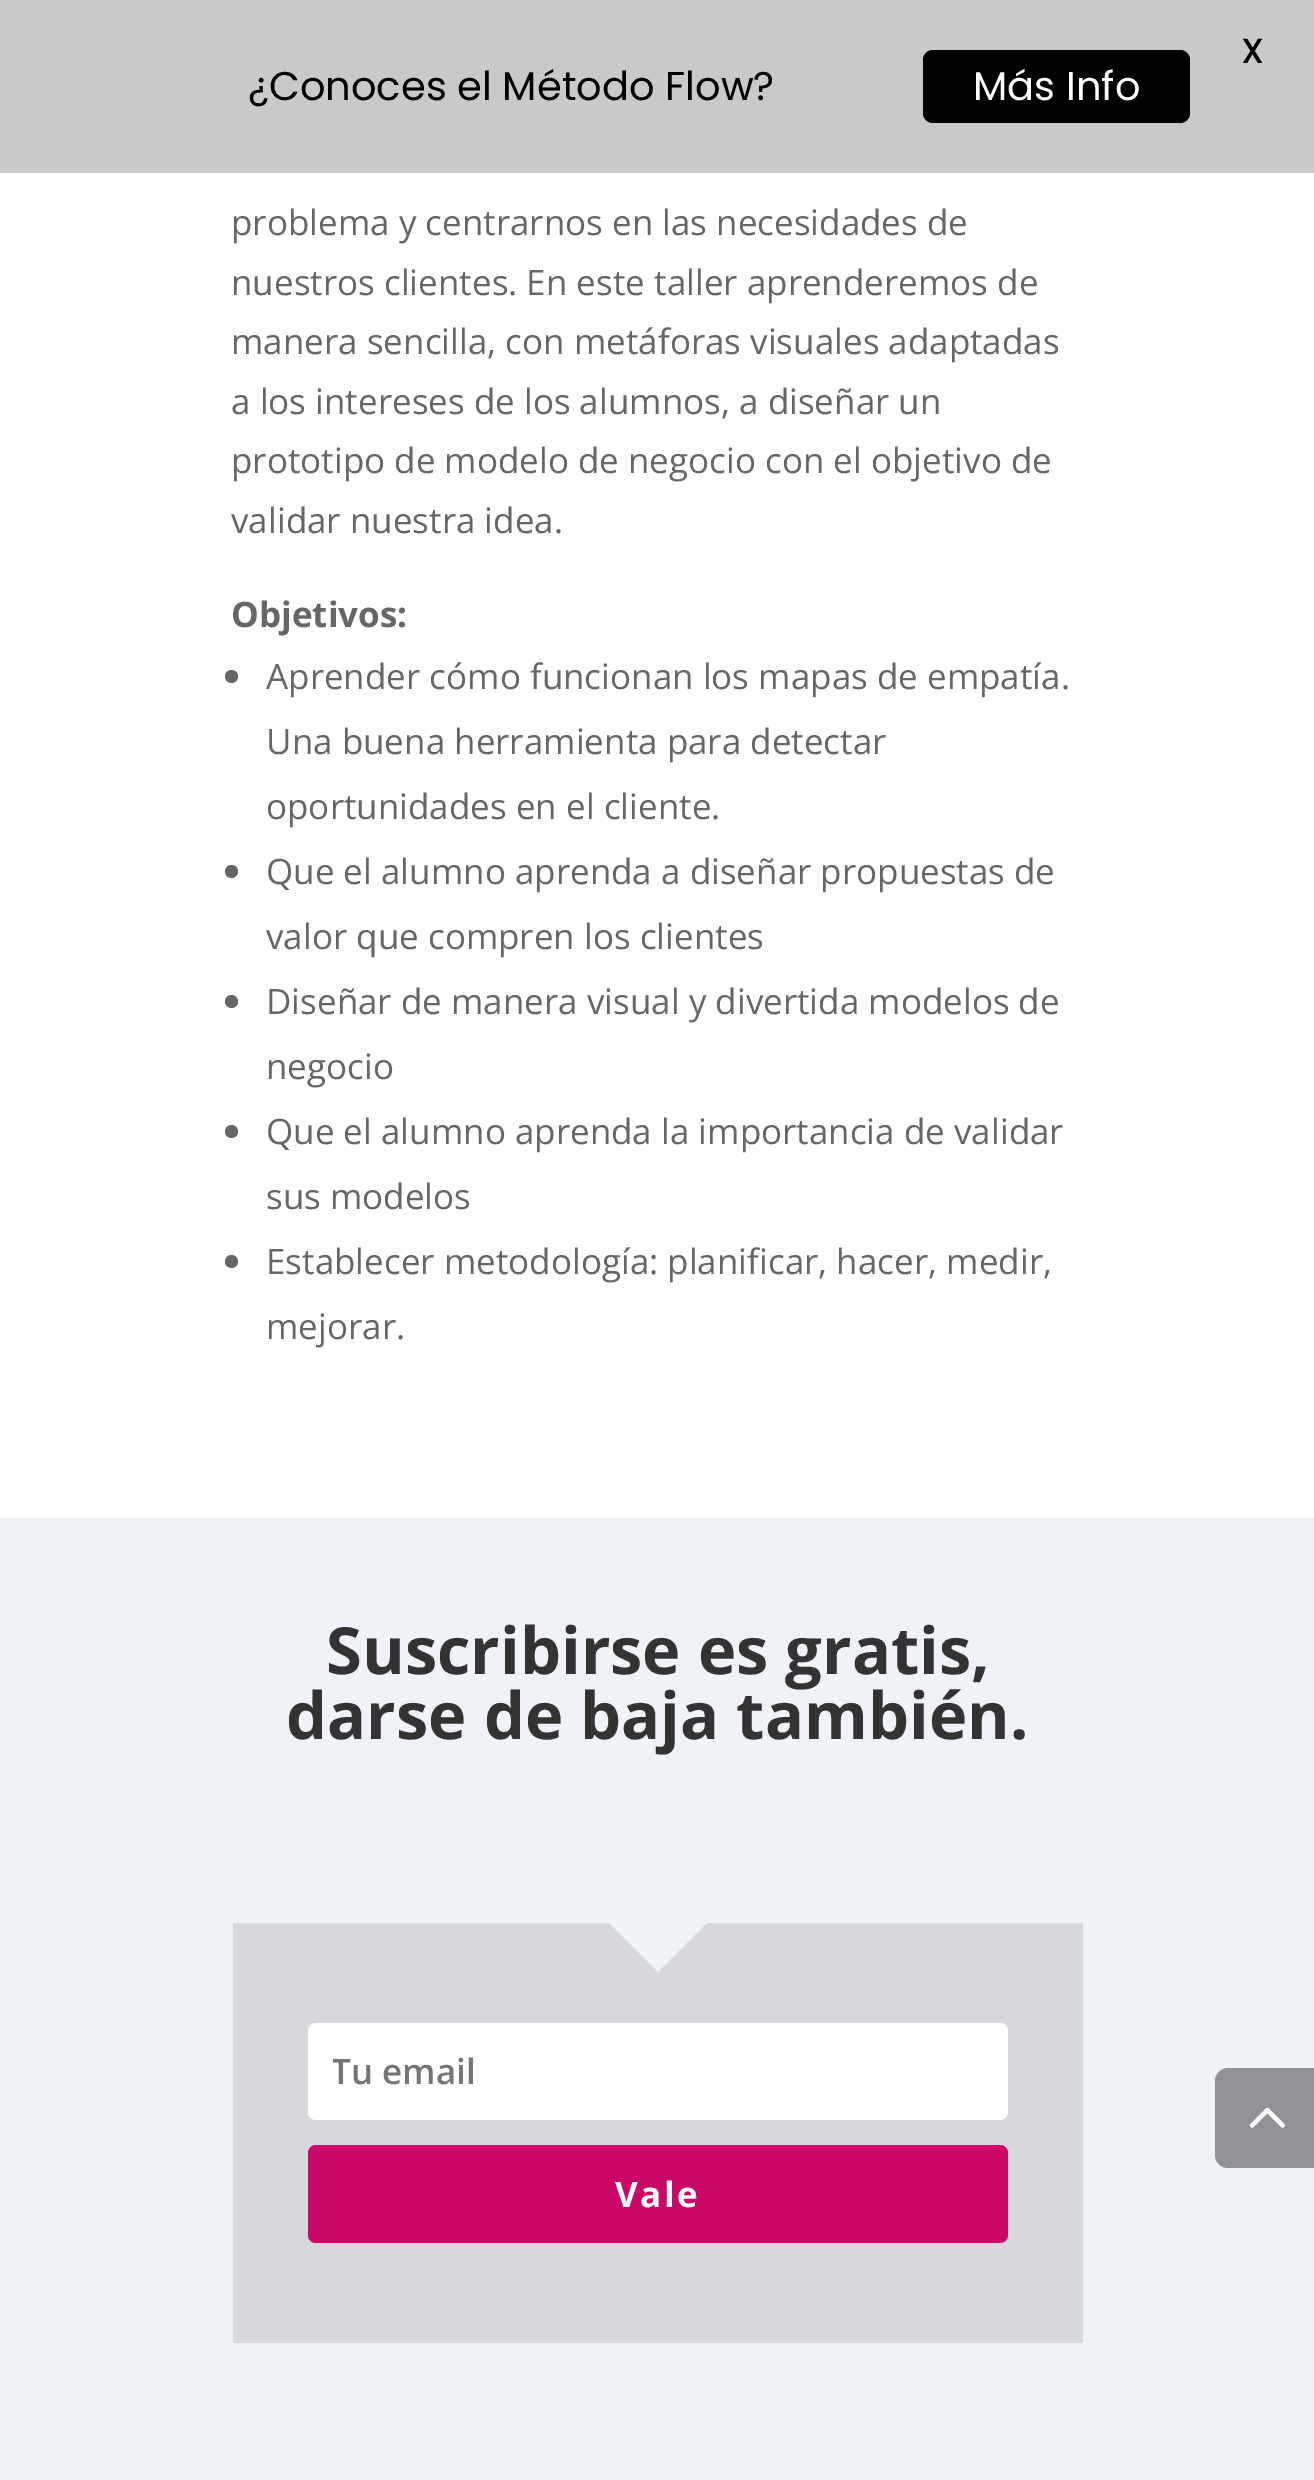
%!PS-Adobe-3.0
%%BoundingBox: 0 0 1314 2480
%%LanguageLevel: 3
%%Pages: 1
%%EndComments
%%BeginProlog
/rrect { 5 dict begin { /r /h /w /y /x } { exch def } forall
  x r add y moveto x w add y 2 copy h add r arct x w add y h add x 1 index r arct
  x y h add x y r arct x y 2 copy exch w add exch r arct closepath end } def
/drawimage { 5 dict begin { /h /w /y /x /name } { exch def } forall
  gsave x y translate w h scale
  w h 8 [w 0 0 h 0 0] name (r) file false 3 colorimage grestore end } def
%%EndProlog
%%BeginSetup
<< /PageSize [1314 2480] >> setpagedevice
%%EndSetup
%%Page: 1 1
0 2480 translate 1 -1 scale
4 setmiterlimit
1 setgray
0 0 1314 2480 rectfill
0.788 setgray
0 0 1314 173 rectfill
0 setgray
923 50 267 73 10 rrect fill
0.4 setgray
newpath 231.5 676.5 6.5 0 360 arc closepath fill
newpath 231.5 871.5 6.5 0 360 arc closepath fill
newpath 231.5 1001.5 6.5 0 360 arc closepath fill
newpath 231.5 1131.5 6.5 0 360 arc closepath fill
newpath 231.5 1261.5 6.5 0 360 arc closepath fill
0.937 0.949 0.969 setrgbcolor
0 1518 1314 962 rectfill
0.843 0.847 0.867 setrgbcolor
233 1923 850 420 rectfill
0.937 0.949 0.969 setrgbcolor
newpath 608 1922 moveto 708 1922 lineto 658 1972 lineto closepath fill
1 setgray
308 2023 700 97 8 rrect fill
0.796 0.027 0.404 setrgbcolor
308 2145 700 98 8 rrect fill
0.561 0.569 0.58 setrgbcolor
newpath 1228 2068 moveto 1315 2068 lineto 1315 2168 lineto 1228 2168 lineto 1221 2168 1215 2162 1215 2155 curveto 1215 2081 lineto 1215 2074 1221 2068 1228 2068 curveto closepath fill
(images/1.raw) 1249 2107 36 21 drawimage
/Poppins-Medium [35 0 0 -35 0 0] selectfont
0 setgray
1241 63 moveto (X) show
/Poppins-Regular [40 0 0 -40 0 0] selectfont
248 100 moveto (¿Conoces el Método Flow?) show
1 setgray
973 100 moveto (Más Info) show
/OpenSans-Regular [35 0 0 -35 0 0] selectfont
0.4 setgray
231 235 moveto (problema y centrarnos en las necesidades de) show
231 295 moveto (nuestros clientes. En este taller aprenderemos de) show
231 354 moveto (manera sencilla, con metáforas visuales adaptadas) show
231 414 moveto (a los intereses de los alumnos, a diseñar un) show
231 473 moveto (prototipo de modelo de negocio con el objetivo de) show
231 533 moveto (validar nuestra idea.) show
/OpenSans-Bold [35 0 0 -35 0 0] selectfont
231 627 moveto (Objetivos:) show
/OpenSans-Regular [35 0 0 -35 0 0] selectfont
266 689 moveto (Aprender cómo funcionan los mapas de empatía.) show
266 754 moveto (Una buena herramienta para detectar) show
266 819 moveto (oportunidades en el cliente.) show
266 884 moveto (Que el alumno aprenda a diseñar propuestas de) show
266 949 moveto (valor que compren los clientes) show
266 1014 moveto (Diseñar de manera visual y divertida modelos de) show
266 1079 moveto (negocio) show
266 1144 moveto (Que el alumno aprenda la importancia de validar) show
266 1209 moveto (sus modelos) show
266 1274 moveto (Establecer metodología: planificar, hacer, medir,) show
266 1339 moveto (mejorar.) show
/OpenSans-Bold [65 0 0 -65 0 0] selectfont
0.2 setgray
326 1674 moveto (Suscribirse es gratis,) show
286 1739 moveto (darse de baja también.) show
gsave
333 2048 650 47 rectclip
/OpenSans-SemiBold [35 0 0 -35 0 0] selectfont
0.459 setgray
331 2084 moveto (Tu email) show
grestore
/OpenSans-Bold [35 0 0 -35 0 0] selectfont
1 setgray
615 2207 moveto 2.5 0 (Vale) ashow
showpage
%%EOF
